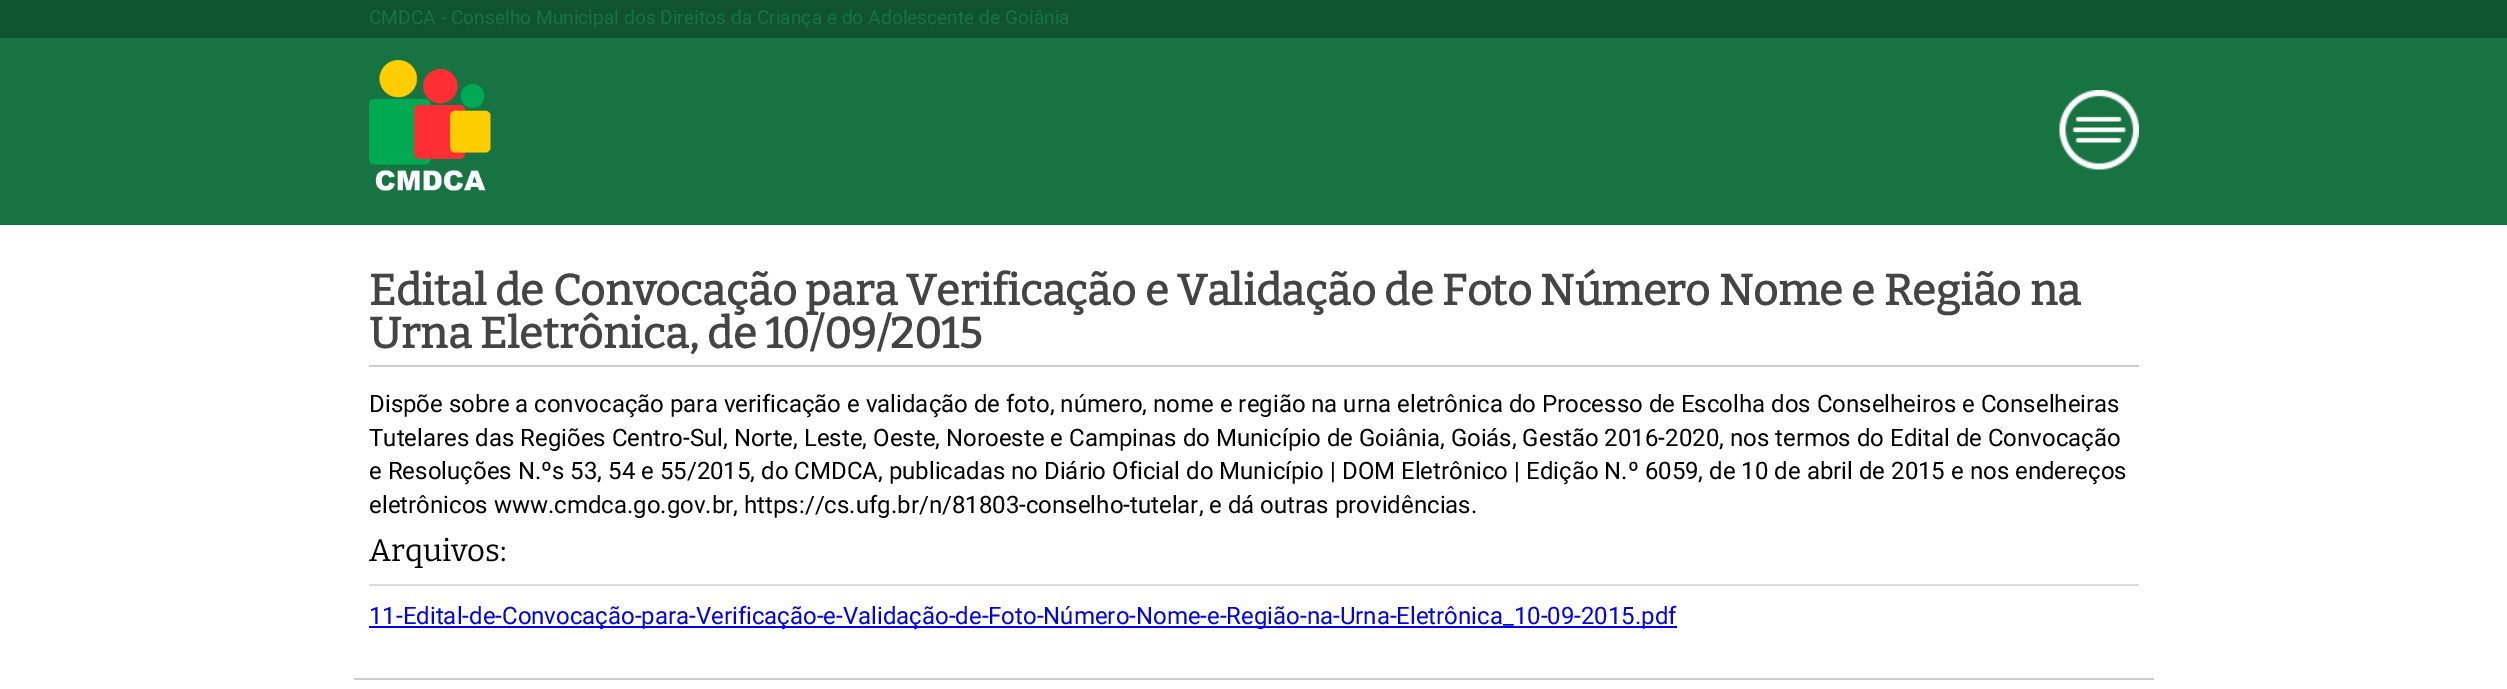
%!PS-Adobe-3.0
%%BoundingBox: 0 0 2507 689
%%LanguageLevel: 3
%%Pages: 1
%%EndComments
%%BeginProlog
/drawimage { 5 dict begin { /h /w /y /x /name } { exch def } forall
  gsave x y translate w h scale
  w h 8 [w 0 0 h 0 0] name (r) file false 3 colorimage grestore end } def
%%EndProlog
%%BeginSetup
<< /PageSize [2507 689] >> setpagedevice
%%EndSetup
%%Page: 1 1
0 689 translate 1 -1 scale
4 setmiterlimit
1 setgray
0 0 2507 689 rectfill
0.063 0.325 0.184 setrgbcolor
0 0 2507 38 rectfill
0.09 0.451 0.259 setrgbcolor
0 38 2507 187 rectfill
(images/1.raw) 369 60 122 131 drawimage
(images/2.raw) 2059 90 80 80 drawimage
0.8 setgray
369 365 1770 2 rectfill
0.867 setgray
369 584 1770 2 rectfill
0 0 0.933 setrgbcolor
369 626 1308 2 rectfill
0.8 setgray
354 678 1800 2 rectfill
/Roboto-Regular [19.2 0 0 -19.2 0 0] selectfont
0.09 0.451 0.259 setrgbcolor
369 24 moveto (CMDCA - Conselho Municipal dos Direitos da Criança e do Adolescente de Goiânia) show
/Bitter-Bold [43.2 0 0 -43.2 0 0] selectfont
0.267 setgray
369 305 moveto (Edital de Convocação para Verificação e Validação de Foto Número Nome e Região na) show
369 348 moveto (Urna Eletrônica, de 10/09/2015) show
/Roboto-Regular [24 0 0 -24 0 0] selectfont
0 setgray
369 412 moveto (Dispõe sobre a convocação para verificação e validação de foto, número, nome e região na urna eletrônica do Processo de Escolha dos Conselheiros e Conselheiras) show
369 446 moveto (Tutelares das Regiões Centro-Sul, Norte, Leste, Oeste, Noroeste e Campinas do Município de Goiânia, Goiás, Gestão 2016-2020, nos termos do Edital de Convocação) show
369 479 moveto (e Resoluções N.ºs 53, 54 e 55/2015, do CMDCA, publicadas no Diário Oficial do Município | DOM Eletrônico | Edição N.º 6059, de 10 de abril de 2015 e nos endereços) show
369 513 moveto (eletrônicos www.cmdca.go.gov.br, https://cs.ufg.br/n/81803-conselho-tutelar, e dá outras providências.) show
/Bitter-Thin [31 0 0 -31 0 0] selectfont
369 561 moveto (Arquivos:) show
/Roboto-Regular [24 0 0 -24 0 0] selectfont
0 0 0.933 setrgbcolor
369 624 moveto (11-Edital-de-Convocação-para-Verificação-e-Validação-de-Foto-Número-Nome-e-Região-na-Urna-Eletrônica_10-09-2015.pdf) show
showpage
%%EOF
